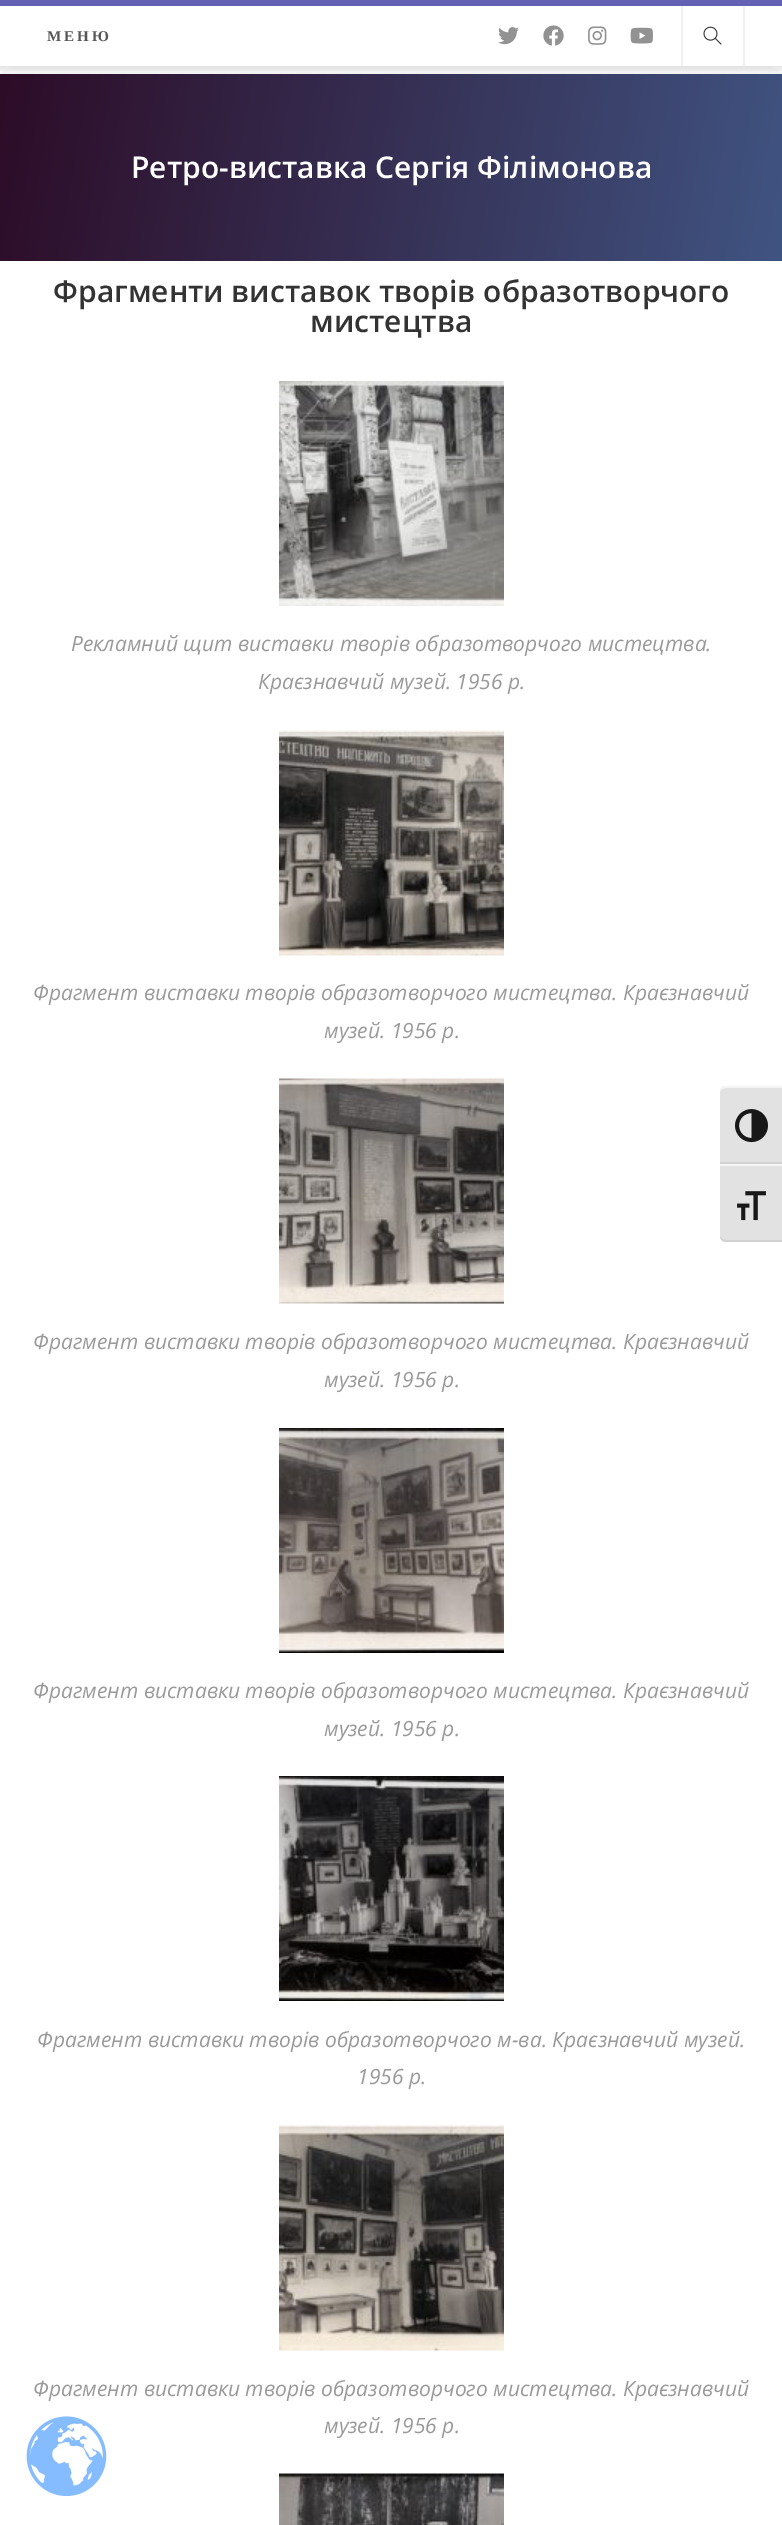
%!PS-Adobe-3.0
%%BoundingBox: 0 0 782 2525
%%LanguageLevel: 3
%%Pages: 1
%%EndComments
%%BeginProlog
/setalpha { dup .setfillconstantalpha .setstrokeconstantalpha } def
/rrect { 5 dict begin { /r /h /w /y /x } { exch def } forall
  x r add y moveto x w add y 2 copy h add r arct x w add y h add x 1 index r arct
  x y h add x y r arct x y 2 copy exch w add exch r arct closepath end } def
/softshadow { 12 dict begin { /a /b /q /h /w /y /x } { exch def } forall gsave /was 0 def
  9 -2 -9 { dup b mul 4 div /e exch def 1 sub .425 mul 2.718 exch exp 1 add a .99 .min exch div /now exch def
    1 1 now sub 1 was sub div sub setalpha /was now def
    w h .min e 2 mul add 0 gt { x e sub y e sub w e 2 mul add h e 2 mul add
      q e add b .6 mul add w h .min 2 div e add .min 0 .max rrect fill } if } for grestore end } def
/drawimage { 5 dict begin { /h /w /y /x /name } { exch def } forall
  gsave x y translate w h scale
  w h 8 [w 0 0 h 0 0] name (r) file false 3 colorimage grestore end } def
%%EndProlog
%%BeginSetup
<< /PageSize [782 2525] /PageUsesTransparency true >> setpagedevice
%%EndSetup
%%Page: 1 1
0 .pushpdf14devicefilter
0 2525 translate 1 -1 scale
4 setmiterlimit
1 setgray
0 0 782 2525 rectfill
gsave
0 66 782 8 rectclip
0 setgray
0 74 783 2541 0 30 0.1 softshadow
grestore
0 36 782 30 rectfill
gsave newpath 0 74 moveto 782 74 lineto 782 261 lineto 0 261 lineto closepath clip newpath
<< /ShadingType 2 /ColorSpace /DeviceRGB /Coords [-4.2 97 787 237] /Extend [true true] /Function << /FunctionType 2 /Domain [0 1] /C0 [0.176 0.047 0.153] /C1 [0.251 0.329 0.51] /N 1 >> >> shfill grestore
gsave
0 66 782 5 rectclip
0 setgray
0 2 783 66 0 4 0.1 softshadow
grestore
0.384 0.38 0.702 setrgbcolor
0 0 782 6 rectfill
(images/1.raw) 498 27 21 18 drawimage
(images/2.raw) 543 25 21 21 drawimage
(images/3.raw) 588 26 19 19 drawimage
(images/4.raw) 630 27 23 17 drawimage
0.945 setgray
743 6 2 60 rectfill
681 6 2 60 rectfill
(images/5.raw) 703 26 19 19 drawimage
(images/6.raw) 279 381 225 225 drawimage
(images/7.raw) 279 730 225 226 drawimage
(images/8.raw) 279 1078 225 226 drawimage
(images/9.raw) 279 1428 225 225 drawimage
(images/10.raw) 279 1776 225 225 drawimage
(images/11.raw) 279 2125 225 226 drawimage
(images/12.raw) 279 2473 225 52 drawimage
0.886 setgray
newpath 726 1086 moveto 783 1086 lineto 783 1164 lineto 720 1164 lineto 720 1092 lineto 720 1088.5 722.5 1086 726 1086 curveto closepath fill
0.961 setgray
newpath 726 1088 moveto 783 1088 lineto 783 1086 lineto 726 1086 lineto 723 1086 720 1089 720 1092 curveto 720 1090 723 1088 726 1088 curveto closepath fill
0.824 setgray
720 1162 62 2 rectfill
(images/13.raw) 735 1109 33 34 drawimage
0.886 setgray
newpath 720 1164 moveto 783 1164 lineto 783 1242 lineto 726 1242 lineto 722.5 1242 720 1239.5 720 1236 curveto closepath fill
0.961 setgray
720 1164 62 2 rectfill
0.824 setgray
newpath 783 1242 moveto 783 1240 lineto 726 1240 lineto 723 1240 720 1238 720 1236 curveto 720 1239 723 1242 726 1242 curveto closepath fill
(images/14.raw) 737 1191 29 30 drawimage
(images/15.raw) 26 2416 81 81 drawimage
/LiberationSerif-Bold [15 0 0 -15 0 0] selectfont
0.333 setgray
47 41 moveto 3 0 (МЕНЮ) ashow
/OpenSans-SemiBold [30 0 0 -30 0 0] selectfont
1 setgray
131 178 moveto (Ретро-виставка Сергія Філімонова) show
0.2 setgray
53 302 moveto (Фрагменти виставок творів образотворчого) show
310 332 moveto (мистецтва) show
/OpenSans-Italic [21 0 0 -21 0 0] selectfont
0.6 setgray
71 651 moveto (Рекламний щит виставки творів образотворчого мистецтва.) show
258 689 moveto (Краєзнавчий музей. 1956 р.) show
33 1000 moveto (Фрагмент виставки творів образотворчого мистецтва. Краєзнавчий) show
324 1038 moveto (музей. 1956 р.) show
33 1349 moveto (Фрагмент виставки творів образотворчого мистецтва. Краєзнавчий) show
324 1387 moveto (музей. 1956 р.) show
33 1698 moveto (Фрагмент виставки творів образотворчого мистецтва. Краєзнавчий) show
324 1736 moveto (музей. 1956 р.) show
37 2047 moveto (Фрагмент виставки творів образотворчого м-ва. Краєзнавчий музей.) show
357 2084 moveto (1956 р.) show
33 2396 moveto (Фрагмент виставки творів образотворчого мистецтва. Краєзнавчий) show
324 2433 moveto (музей. 1956 р.) show
.poppdf14devicefilter showpage
%%EOF
